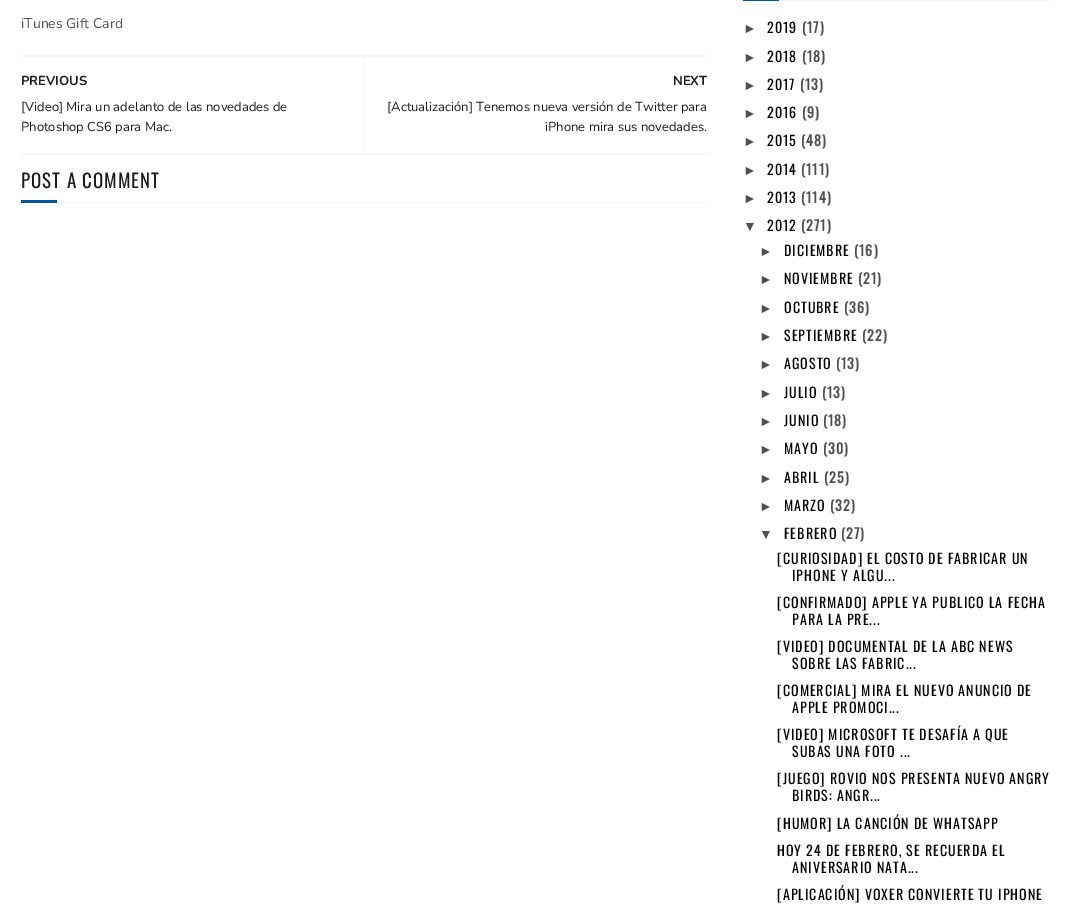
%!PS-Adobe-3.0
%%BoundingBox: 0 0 1073 904
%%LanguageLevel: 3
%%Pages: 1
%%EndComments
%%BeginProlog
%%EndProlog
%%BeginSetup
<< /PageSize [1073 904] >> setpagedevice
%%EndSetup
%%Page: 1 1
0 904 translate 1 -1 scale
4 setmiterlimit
1 setgray
0 0 1073 904 rectfill
0.961 setgray
21 55 687 2 rectfill
21 153 687 2 rectfill
364 57 1 96 rectfill
57 202 651 1 rectfill
0.004 0.337 0.608 setrgbcolor
21 200 36 3 rectfill
0.961 setgray
779 0 273 1 rectfill
0.004 0.337 0.608 setrgbcolor
743 0 36 1 rectfill
/Nunito-Regular [14 0 0 -14 0 0] selectfont
0.31 setgray
21 28 moveto (iTunes Gift Card) show
/Nunito-Bold [13 0 0 -13 0 0] selectfont
0.11 setgray
21 85 moveto (PREVIOUS) show
/Nunito-Regular [13 0 0 -13 0 0] selectfont
21 111 moveto ([Video] Mira un adelanto de las novedades de) show
21 131 moveto (Photoshop CS6 para Mac.) show
/Nunito-Bold [13 0 0 -13 0 0] selectfont
673 85 moveto (NEXT) show
/Nunito-Regular [13 0 0 -13 0 0] selectfont
387 111 moveto ([Actualización] Tenemos nueva versión de Twitter para) show
545 131 moveto (iPhone mira sus novedades.) show
/Oswald-Regular [19 0 0 -19 0 0] selectfont
21 188 moveto 1 0 (POST A COMMENT) ashow
/LiberationSans-Regular [14 0 0 -14 0 0] selectfont
0.31 setgray
743 33 moveto 1 0 (►) ashow
/Oswald-Regular [14 0 0 -14 0 0] selectfont
0 setgray
767 33 moveto 1 0 (2019) ashow
/Oswald-Bold [14 0 0 -14 0 0] selectfont
0.31 setgray
802 33 moveto 1 0 (\(17\)) ashow
/LiberationSans-Regular [14 0 0 -14 0 0] selectfont
743 62 moveto 1 0 (►) ashow
/Oswald-Regular [14 0 0 -14 0 0] selectfont
0 setgray
767 62 moveto 1 0 (2018) ashow
/Oswald-Bold [14 0 0 -14 0 0] selectfont
0.31 setgray
802 62 moveto 1 0 (\(18\)) ashow
/LiberationSans-Regular [14 0 0 -14 0 0] selectfont
743 90 moveto 1 0 (►) ashow
/Oswald-Regular [14 0 0 -14 0 0] selectfont
0 setgray
767 90 moveto 1 0 (2017) ashow
/Oswald-Bold [14 0 0 -14 0 0] selectfont
0.31 setgray
800 90 moveto 1 0 (\(13\)) ashow
/LiberationSans-Regular [14 0 0 -14 0 0] selectfont
743 118 moveto 1 0 (►) ashow
/Oswald-Regular [14 0 0 -14 0 0] selectfont
0 setgray
767 118 moveto 1 0 (2016) ashow
/Oswald-Bold [14 0 0 -14 0 0] selectfont
0.31 setgray
802 118 moveto 1 0 (\(9\)) ashow
/LiberationSans-Regular [14 0 0 -14 0 0] selectfont
743 146 moveto 1 0 (►) ashow
/Oswald-Regular [14 0 0 -14 0 0] selectfont
0 setgray
767 146 moveto 1 0 (2015) ashow
/Oswald-Bold [14 0 0 -14 0 0] selectfont
0.31 setgray
801 146 moveto 1 0 (\(48\)) ashow
/LiberationSans-Regular [14 0 0 -14 0 0] selectfont
743 175 moveto 1 0 (►) ashow
/Oswald-Regular [14 0 0 -14 0 0] selectfont
0 setgray
767 175 moveto 1 0 (2014) ashow
/Oswald-Bold [14 0 0 -14 0 0] selectfont
0.31 setgray
801 175 moveto 1 0 (\(111\)) ashow
/LiberationSans-Regular [14 0 0 -14 0 0] selectfont
743 203 moveto 1 0 (►) ashow
/Oswald-Regular [14 0 0 -14 0 0] selectfont
0 setgray
767 203 moveto 1 0 (2013) ashow
/Oswald-Bold [14 0 0 -14 0 0] selectfont
0.31 setgray
801 203 moveto 1 0 (\(114\)) ashow
/LiberationSans-Regular [14 0 0 -14 0 0] selectfont
743 231 moveto 1 0 (▼) ashow
/Oswald-Regular [14 0 0 -14 0 0] selectfont
0 setgray
767 231 moveto 1 0 (2012) ashow
/Oswald-Bold [14 0 0 -14 0 0] selectfont
0.31 setgray
801 231 moveto 1 0 (\(271\)) ashow
/LiberationSans-Regular [14 0 0 -14 0 0] selectfont
759 256 moveto 1 0 (►) ashow
/Oswald-Regular [14 0 0 -14 0 0] selectfont
0 setgray
784 256 moveto 1 0 (DICIEMBRE) ashow
/Oswald-Bold [14 0 0 -14 0 0] selectfont
0.31 setgray
854 256 moveto 1 0 (\(16\)) ashow
/LiberationSans-Regular [14 0 0 -14 0 0] selectfont
759 284 moveto 1 0 (►) ashow
/Oswald-Regular [14 0 0 -14 0 0] selectfont
0 setgray
784 284 moveto 1 0 (NOVIEMBRE) ashow
/Oswald-Bold [14 0 0 -14 0 0] selectfont
0.31 setgray
858 284 moveto 1 0 (\(21\)) ashow
/LiberationSans-Regular [14 0 0 -14 0 0] selectfont
759 313 moveto 1 0 (►) ashow
/Oswald-Regular [14 0 0 -14 0 0] selectfont
0 setgray
784 313 moveto 1 0 (OCTUBRE) ashow
/Oswald-Bold [14 0 0 -14 0 0] selectfont
0.31 setgray
844 313 moveto 1 0 (\(36\)) ashow
/LiberationSans-Regular [14 0 0 -14 0 0] selectfont
759 341 moveto 1 0 (►) ashow
/Oswald-Regular [14 0 0 -14 0 0] selectfont
0 setgray
784 341 moveto 1 0 (SEPTIEMBRE) ashow
/Oswald-Bold [14 0 0 -14 0 0] selectfont
0.31 setgray
862 341 moveto 1 0 (\(22\)) ashow
/LiberationSans-Regular [14 0 0 -14 0 0] selectfont
759 369 moveto 1 0 (►) ashow
/Oswald-Regular [14 0 0 -14 0 0] selectfont
0 setgray
784 369 moveto 1 0 (AGOSTO) ashow
/Oswald-Bold [14 0 0 -14 0 0] selectfont
0.31 setgray
836 369 moveto 1 0 (\(13\)) ashow
/LiberationSans-Regular [14 0 0 -14 0 0] selectfont
759 398 moveto 1 0 (►) ashow
/Oswald-Regular [14 0 0 -14 0 0] selectfont
0 setgray
784 398 moveto 1 0 (JULIO) ashow
/Oswald-Bold [14 0 0 -14 0 0] selectfont
0.31 setgray
822 398 moveto 1 0 (\(13\)) ashow
/LiberationSans-Regular [14 0 0 -14 0 0] selectfont
759 426 moveto 1 0 (►) ashow
/Oswald-Regular [14 0 0 -14 0 0] selectfont
0 setgray
784 426 moveto 1 0 (JUNIO) ashow
/Oswald-Bold [14 0 0 -14 0 0] selectfont
0.31 setgray
823 426 moveto 1 0 (\(18\)) ashow
/LiberationSans-Regular [14 0 0 -14 0 0] selectfont
759 454 moveto 1 0 (►) ashow
/Oswald-Regular [14 0 0 -14 0 0] selectfont
0 setgray
784 454 moveto 1 0 (MAYO) ashow
/Oswald-Bold [14 0 0 -14 0 0] selectfont
0.31 setgray
823 454 moveto 1 0 (\(30\)) ashow
/LiberationSans-Regular [14 0 0 -14 0 0] selectfont
759 483 moveto 1 0 (►) ashow
/Oswald-Regular [14 0 0 -14 0 0] selectfont
0 setgray
784 483 moveto 1 0 (ABRIL) ashow
/Oswald-Bold [14 0 0 -14 0 0] selectfont
0.31 setgray
824 483 moveto 1 0 (\(25\)) ashow
/LiberationSans-Regular [14 0 0 -14 0 0] selectfont
759 511 moveto 1 0 (►) ashow
/Oswald-Regular [14 0 0 -14 0 0] selectfont
0 setgray
784 511 moveto 1 0 (MARZO) ashow
/Oswald-Bold [14 0 0 -14 0 0] selectfont
0.31 setgray
830 511 moveto 1 0 (\(32\)) ashow
/LiberationSans-Regular [14 0 0 -14 0 0] selectfont
759 539 moveto 1 0 (▼) ashow
/Oswald-Regular [14 0 0 -14 0 0] selectfont
0 setgray
784 539 moveto 1 0 (FEBRERO) ashow
/Oswald-Bold [14 0 0 -14 0 0] selectfont
0.31 setgray
841 539 moveto 1 0 (\(27\)) ashow
/Oswald-Regular [14 0 0 -14 0 0] selectfont
0 setgray
777 564 moveto 1 0 ([CURIOSIDAD] EL COSTO DE FABRICAR UN) ashow
792 581 moveto 1 0 (IPHONE Y ALGU...) ashow
777 608 moveto 1 0 ([CONFIRMADO] APPLE YA PUBLICO LA FECHA) ashow
792 625 moveto 1 0 (PARA LA PRE...) ashow
777 652 moveto 1 0 ([VIDEO] DOCUMENTAL DE LA ABC NEWS) ashow
792 669 moveto 1 0 (SOBRE LAS FABRIC...) ashow
777 696 moveto 1 0 ([COMERCIAL] MIRA EL NUEVO ANUNCIO DE) ashow
792 713 moveto 1 0 (APPLE PROMOCI...) ashow
777 740 moveto 1 0 ([VIDEO] MICROSOFT TE DESAFÍA A QUE) ashow
792 757 moveto 1 0 (SUBAS UNA FOTO ...) ashow
777 784 moveto 1 0 ([JUEGO] ROVIO NOS PRESENTA NUEVO ANGRY) ashow
792 801 moveto 1 0 (BIRDS: ANGR...) ashow
777 829 moveto 1 0 ([HUMOR] LA CANCIÓN DE WHATSAPP) ashow
777 856 moveto 1 0 (HOY 24 DE FEBRERO, SE RECUERDA EL) ashow
792 873 moveto 1 0 (ANIVERSARIO NATA...) ashow
777 900 moveto 1 0 ([APLICACIÓN] VOXER CONVIERTE TU IPHONE) ashow
showpage
%%EOF
